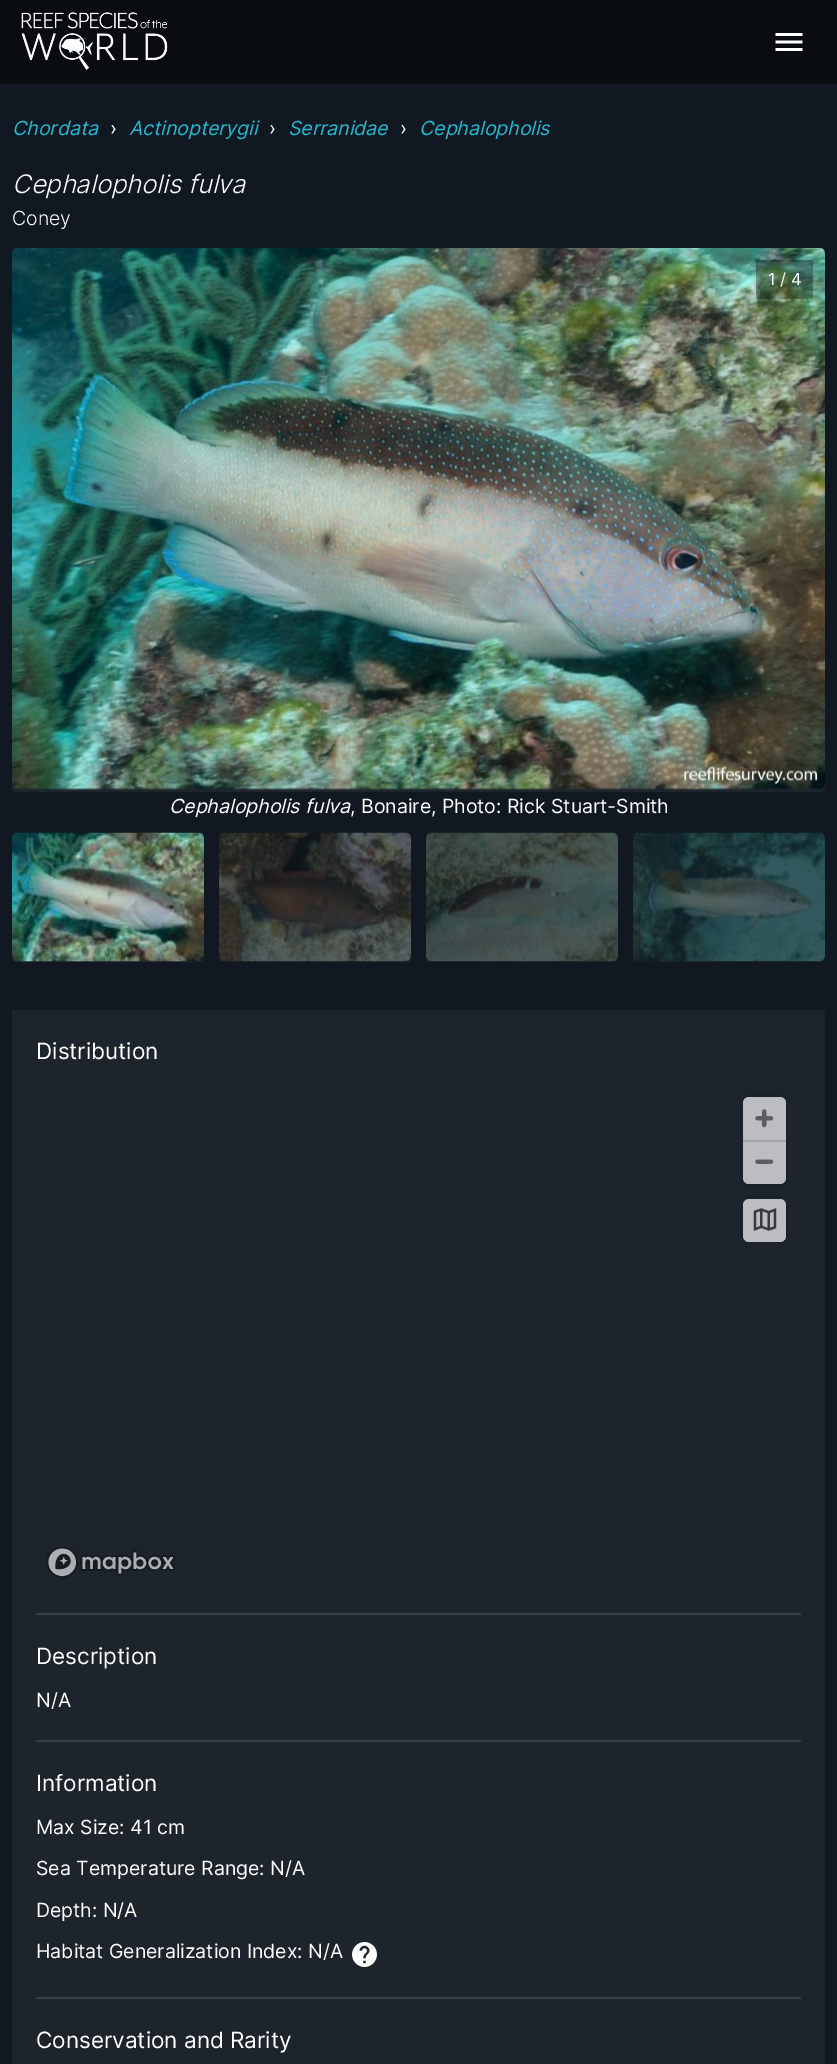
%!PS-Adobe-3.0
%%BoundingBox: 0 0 837 2064
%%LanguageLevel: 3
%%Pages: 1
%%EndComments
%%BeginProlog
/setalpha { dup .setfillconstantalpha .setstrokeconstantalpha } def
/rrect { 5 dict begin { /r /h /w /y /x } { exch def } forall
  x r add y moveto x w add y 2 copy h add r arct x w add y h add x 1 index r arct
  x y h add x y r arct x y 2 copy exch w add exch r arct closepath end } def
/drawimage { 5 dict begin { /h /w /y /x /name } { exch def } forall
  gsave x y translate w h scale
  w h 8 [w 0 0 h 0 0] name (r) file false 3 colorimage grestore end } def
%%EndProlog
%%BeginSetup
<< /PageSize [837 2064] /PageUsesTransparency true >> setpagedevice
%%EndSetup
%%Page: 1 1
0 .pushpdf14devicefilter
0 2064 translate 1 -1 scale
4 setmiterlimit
0.067 0.094 0.129 setrgbcolor
0 0 837 2064 rectfill
0.035 0.051 0.071 setrgbcolor
0 0 837 84 rectfill
(images/1.raw) 21 12 147 58 drawimage
(images/2.raw) 775 33 28 18 drawimage
0.114 0.141 0.173 setrgbcolor
12 248 813 544 3 rrect fill
(images/3.raw) 12 248 813 542 drawimage
0.3 setalpha
0 setgray
756 260 57 39 rectfill
0.05 setalpha
1 setgray
12 833 192 129 rectfill
1 setalpha
(images/4.raw) 12 832 192 130 drawimage
0.086 0.114 0.145 setrgbcolor
219 833 192 129 3 rrect fill
(images/5.raw) 219 832 192 130 drawimage
426 833 192 129 3 rrect fill
(images/6.raw) 426 832 192 130 drawimage
633 833 192 129 3 rrect fill
(images/7.raw) 633 832 192 130 drawimage
0.114 0.141 0.173 setrgbcolor
12 1010 813 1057 3 rrect fill
0.106 0.129 0.161 setrgbcolor
3 setlinewidth
741.5 1095.5 46 90 7.5 rrect stroke
0.733 0.741 0.753 setrgbcolor
743 1097 43 87 6 rrect fill
(images/8.raw) 755 1109 19 19 drawimage
0.639 0.651 0.659 setrgbcolor
743 1140 43 2 rectfill
(images/9.raw) 755 1159 19 5 drawimage
0.106 0.129 0.161 setrgbcolor
741.5 1197.5 46 46 7.5 rrect stroke
0.733 0.741 0.753 setrgbcolor
743 1199 43 43 6 rrect fill
(images/10.raw) 753 1208 24 23 drawimage
(images/11.raw) 46 1546 130 33 drawimage
0.22 0.243 0.271 setrgbcolor
36 1613 765 2 rectfill
36 1740 765 2 rectfill
(images/12.raw) 352 1942 25 25 drawimage
36 1997 765 2 rectfill
/Inter-Italic [19.5 0 0 -19.5 0 0] selectfont
0.133 0.722 0.812 setrgbcolor
12 135 moveto (Chordata) show
/Inter-Regular [19.5 0 0 -19.5 0 0] selectfont
1 setgray
110 135 moveto (›) show
/Inter-Italic [19.5 0 0 -19.5 0 0] selectfont
0.133 0.722 0.812 setrgbcolor
129 135 moveto (Actinopterygii) show
/Inter-Regular [19.5 0 0 -19.5 0 0] selectfont
1 setgray
269 135 moveto (›) show
/Inter-Italic [19.5 0 0 -19.5 0 0] selectfont
0.133 0.722 0.812 setrgbcolor
288 135 moveto (Serranidae) show
/Inter-Regular [19.5 0 0 -19.5 0 0] selectfont
1 setgray
400 135 moveto (›) show
/Inter-Italic [19.5 0 0 -19.5 0 0] selectfont
0.133 0.722 0.812 setrgbcolor
419 135 moveto (Cephalopholis) show
/Inter-LightItalic [25.5 0 0 -25.5 0 0] selectfont
1 setgray
12 193 moveto (Cephalopholis fulva) show
/Inter-Light [19.5 0 0 -19.5 0 0] selectfont
12 225 moveto (Coney) show
/Inter-Regular [16.5 0 0 -16.5 0 0] selectfont
768 285 moveto (1 / 4) show
/Inter-Italic [19.5 0 0 -19.5 0 0] selectfont
169 813 moveto (Cephalopholis fulva) show
/Inter-Regular [19.5 0 0 -19.5 0 0] selectfont
350 813 moveto (, Bonaire, Photo: Rick Stuart-Smith) show
/Inter-Regular [22.5 0 0 -22.5 0 0] selectfont
36 1059 moveto (Distribution) show
36 1664 moveto (Description) show
/Inter-Regular [19.5 0 0 -19.5 0 0] selectfont
36 1707 moveto (N/A) show
/Inter-Regular [22.5 0 0 -22.5 0 0] selectfont
36 1791 moveto (Information) show
/Inter-Regular [19.5 0 0 -19.5 0 0] selectfont
36 1834 moveto (Max Size: 41 cm) show
36 1875 moveto (Sea Temperature Range: N/A) show
36 1917 moveto (Depth: N/A) show
36 1958 moveto (Habitat Generalization Index: N/A) show
/Inter-Regular [22.5 0 0 -22.5 0 0] selectfont
36 2048 moveto (Conservation and Rarity) show
.poppdf14devicefilter showpage
%%EOF
